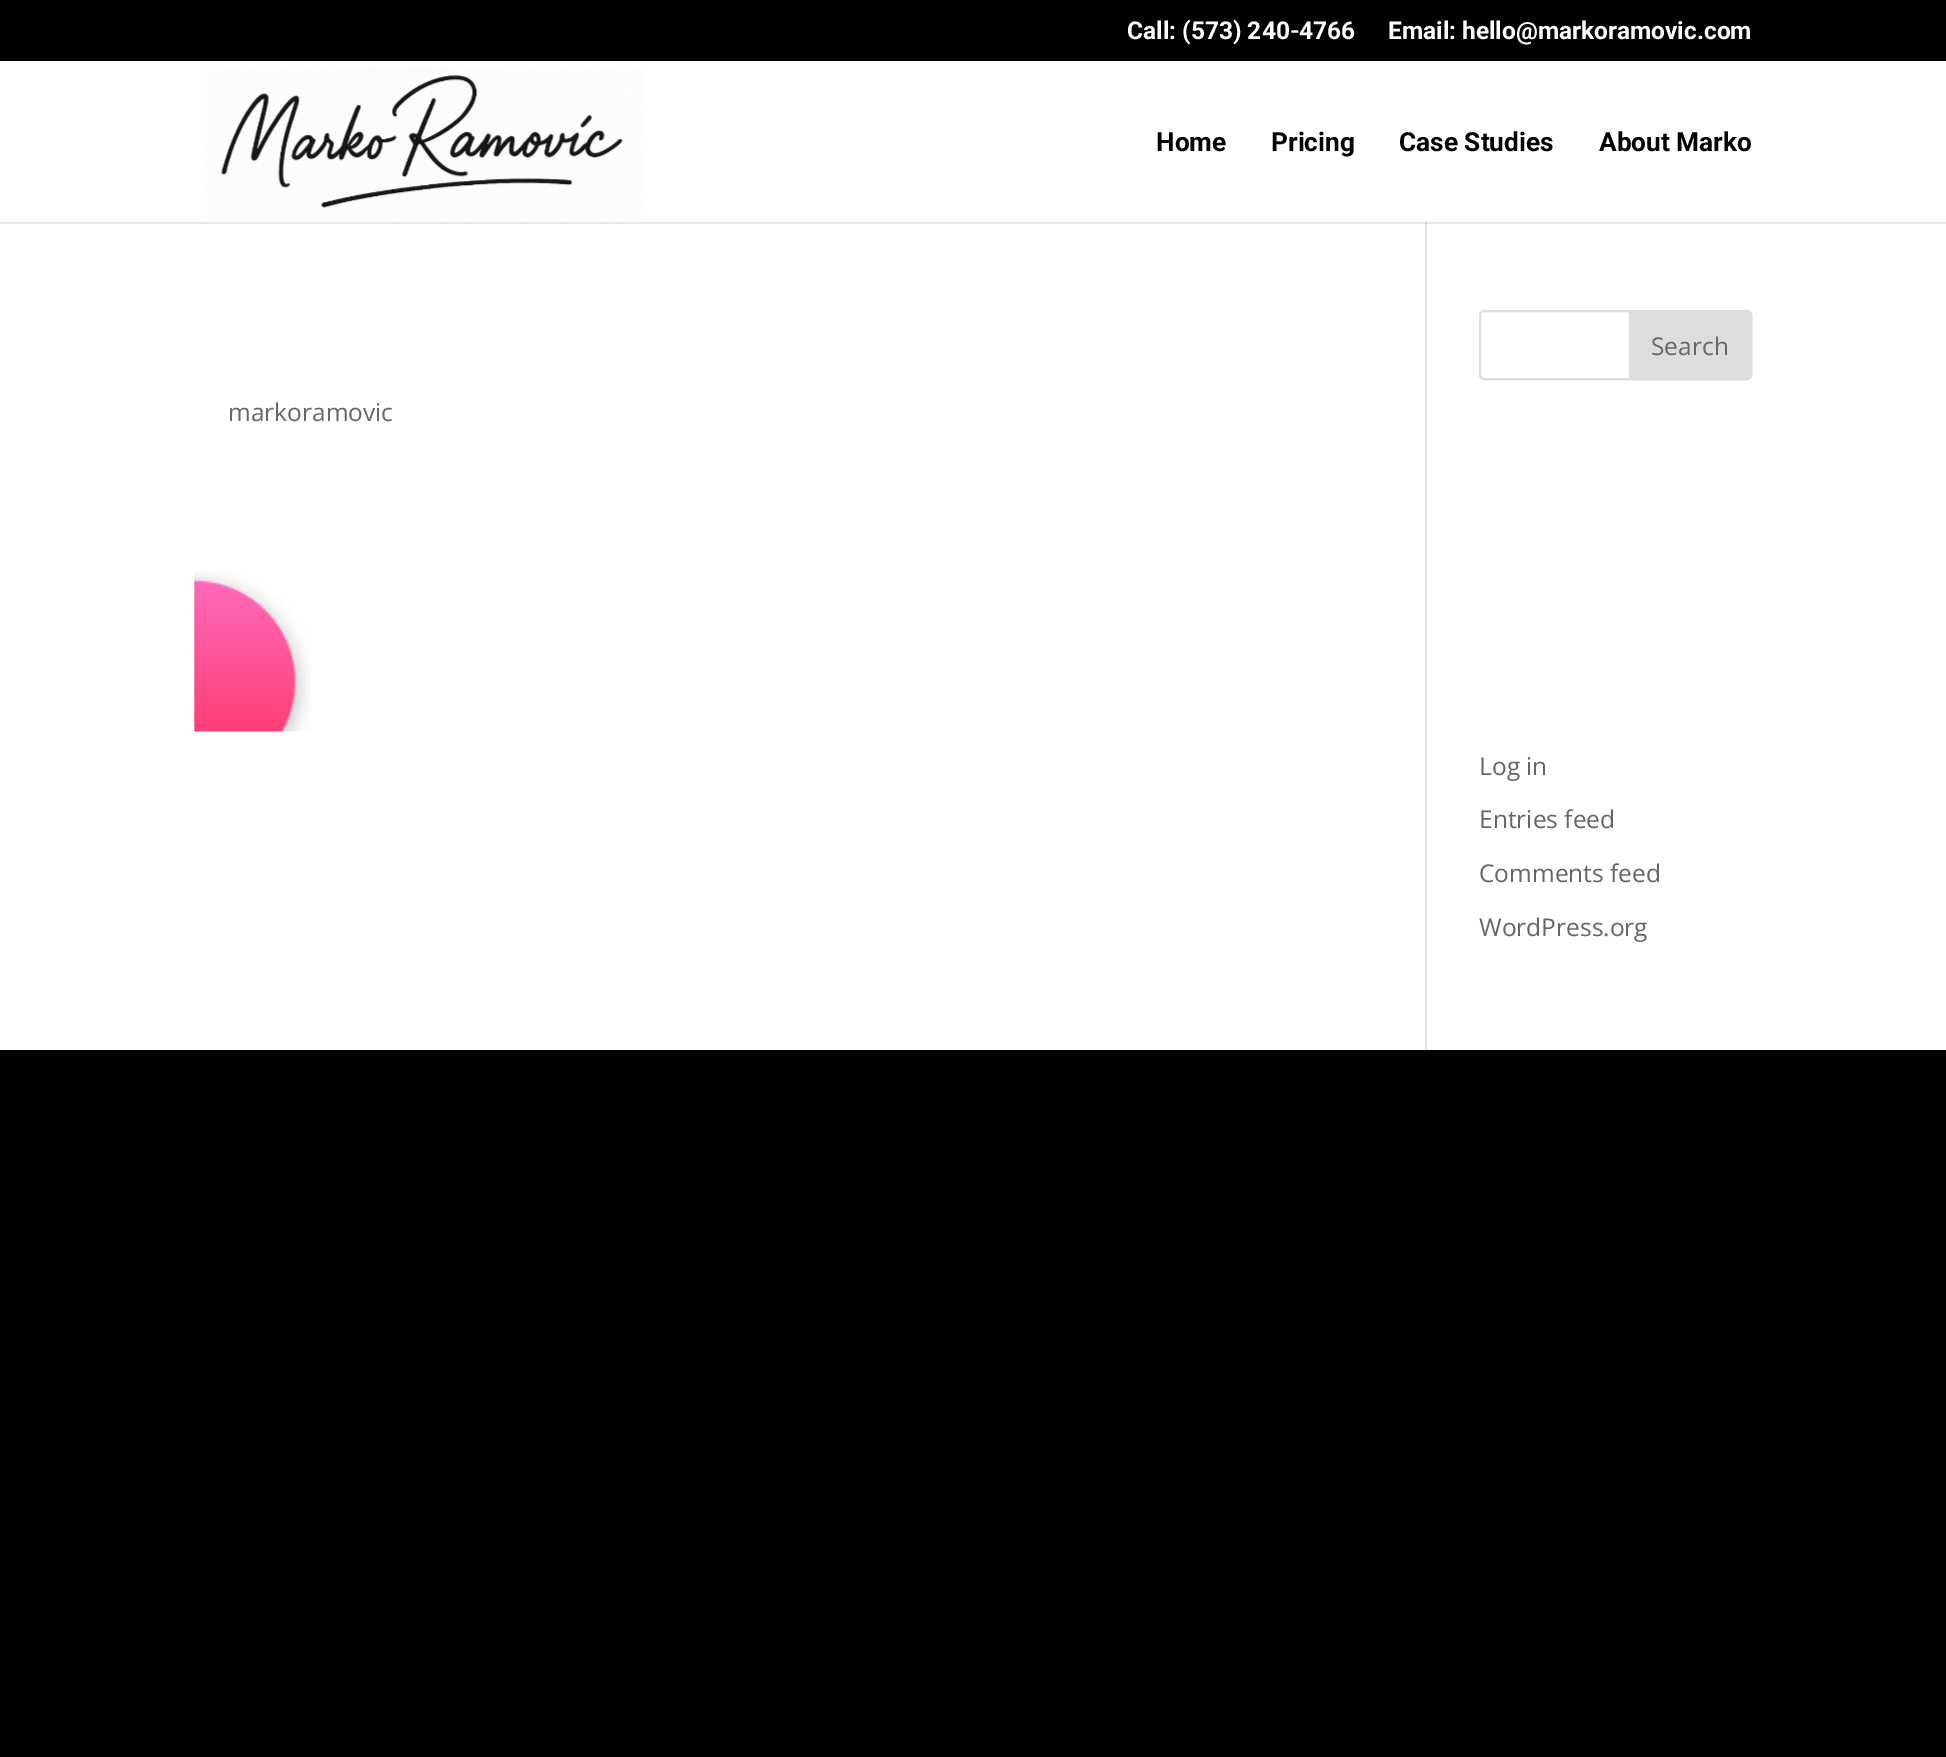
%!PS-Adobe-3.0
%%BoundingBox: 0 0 1946 1757
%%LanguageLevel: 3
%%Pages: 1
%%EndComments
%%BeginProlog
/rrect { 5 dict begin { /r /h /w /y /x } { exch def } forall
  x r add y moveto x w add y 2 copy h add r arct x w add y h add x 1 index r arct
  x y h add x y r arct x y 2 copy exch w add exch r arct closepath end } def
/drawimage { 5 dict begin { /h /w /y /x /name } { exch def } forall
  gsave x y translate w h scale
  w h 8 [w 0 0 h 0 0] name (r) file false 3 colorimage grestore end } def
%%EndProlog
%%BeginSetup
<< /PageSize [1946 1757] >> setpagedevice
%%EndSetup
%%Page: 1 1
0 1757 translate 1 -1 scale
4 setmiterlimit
0 setgray
0 0 1946 1757 rectfill
1 setgray
0 61 1946 161 rectfill
0.902 setgray
0 222 1946 2 rectfill
(images/1.raw) 201 66 441 157 drawimage
1 setgray
0 224 1946 826 rectfill
0.886 setgray
1425 224 2 826 rectfill
0.796 setgray
1425 222 2 2 rectfill
(images/2.raw) 194 571 117 161 drawimage
0.867 setgray
2 setlinewidth
1480 311 271 68 4 rrect stroke
newpath 1630 311 moveto 1747 311 lineto 1749 311 1751 313 1751 315 curveto 1751 375 lineto 1751 377 1749 379 1747 379 curveto 1630 379 lineto closepath gsave fill grestore
stroke
/Roboto-Bold [24.5 0 0 -24.5 0 0] selectfont
1 setgray
1127 39 moveto (Call: \(573\) 240-4766) show
1388 39 moveto (Email: hello@markoramovic.com) show
/Roboto-Bold [26.25 0 0 -26.25 0 0] selectfont
0 setgray
1156 151 moveto (Home) show
1271 151 moveto (Pricing) show
1399 151 moveto (Case Studies) show
1599 151 moveto (About Marko) show
/OpenSans-Regular [24.5 0 0 -24.5 0 0] selectfont
0.4 setgray
228 421 moveto (markoramovic) show
1651 355 moveto (Search) show
1479 775 moveto (Log in) show
1479 828 moveto (Entries feed) show
1479 882 moveto (Comments feed) show
1479 936 moveto (WordPress.org) show
showpage
%%EOF
